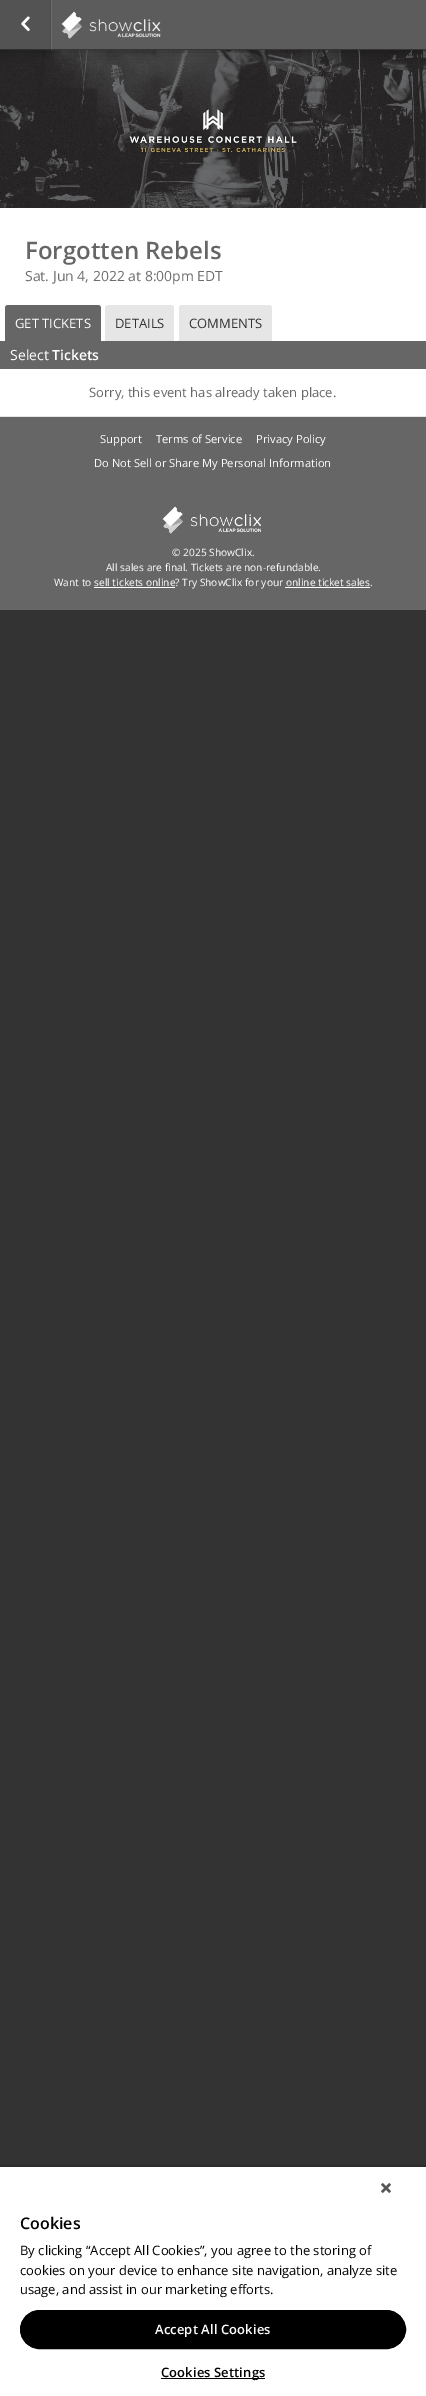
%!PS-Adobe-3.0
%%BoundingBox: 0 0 426 2396
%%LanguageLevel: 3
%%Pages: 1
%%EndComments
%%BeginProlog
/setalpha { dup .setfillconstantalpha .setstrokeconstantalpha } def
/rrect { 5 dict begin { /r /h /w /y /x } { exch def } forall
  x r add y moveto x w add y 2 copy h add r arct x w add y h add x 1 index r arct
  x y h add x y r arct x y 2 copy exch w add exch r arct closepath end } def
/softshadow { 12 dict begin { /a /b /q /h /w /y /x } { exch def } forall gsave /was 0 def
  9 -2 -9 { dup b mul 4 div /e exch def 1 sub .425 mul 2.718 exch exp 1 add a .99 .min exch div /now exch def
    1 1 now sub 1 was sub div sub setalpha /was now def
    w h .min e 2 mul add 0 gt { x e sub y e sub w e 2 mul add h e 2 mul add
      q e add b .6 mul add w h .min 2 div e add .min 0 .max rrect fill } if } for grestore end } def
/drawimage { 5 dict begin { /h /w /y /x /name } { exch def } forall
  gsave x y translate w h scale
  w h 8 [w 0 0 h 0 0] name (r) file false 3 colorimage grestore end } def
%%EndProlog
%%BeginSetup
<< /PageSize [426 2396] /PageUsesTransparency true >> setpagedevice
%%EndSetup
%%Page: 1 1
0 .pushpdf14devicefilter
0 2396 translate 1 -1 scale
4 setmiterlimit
0.2 setgray
0 0 426 2396 rectfill
(images/3.raw) 0 50 426 158 drawimage
0 setgray
0 1 426 50 0 7.5 0.4 softshadow
0.361 setgray
52 0 374 49 rectfill
0.325 setgray
0 0 50 49 rectfill
0.294 setgray
50 0 1 50 rectfill
0.424 setgray
51 0 1 50 rectfill
0.204 setgray
52 49 374 1 rectfill
0.184 setgray
0 49 51 1 rectfill
0.165 setgray
50 49 1 1 rectfill
0.282 setgray
51 49 1 1 rectfill
(images/1.raw) 21 16 9 15 drawimage
(images/2.raw) 61 11 100 28 drawimage
1 setgray
0 208 426 208 rectfill
0.4 setgray
newpath 8 305 moveto 98 305 lineto 99.5 305 101 306.5 101 308 curveto 101 341 lineto 5 341 lineto 5 308 lineto 5 306.5 6.5 305 8 305 curveto closepath fill
0.902 setgray
newpath 108 305 moveto 171 305 lineto 172.5 305 174 306.5 174 308 curveto 174 341 lineto 105 341 lineto 105 308 lineto 105 306.5 106.5 305 108 305 curveto closepath fill
newpath 182 305 moveto 269 305 lineto 270.5 305 272 306.5 272 308 curveto 272 341 lineto 179 341 lineto 179 308 lineto 179 306.5 180.5 305 182 305 curveto closepath fill
0.4 setgray
0 341 426 28 rectfill
0.898 setgray
0 416 426 1 rectfill
0.4 setgray
0 417 426 193 rectfill
(images/4.raw) 162 506 99 28 drawimage
1 setgray
94 587 81 1 rectfill
285 587 85 1 rectfill
0 setgray
0 2167 426 229 0 2 0.35 softshadow
1 setgray
0 2167 426 229 rectfill
(images/5.raw) 381 2183 10 10 drawimage
0 setgray
20.5 2310.5 385 38 19 rrect gsave fill grestore
stroke
161 2378 104 1 rectfill
/OpenSans-SemiBold [24 0 0 -24 0 0] selectfont
0.4 setgray
25 259 moveto (Forgotten Rebels) show
/OpenSans-Regular [14 0 0 -14 0 0] selectfont
0.427 setgray
25 281 moveto (Sat. Jun 4, 2022 at 8:00pm EDT) show
/OpenSans-Regular [13 0 0 -13 0 0] selectfont
1 setgray
15 328 moveto (GET TICKETS) show
0.2 setgray
115 328 moveto (DETAILS) show
189 328 moveto (COMMENTS) show
/OpenSans-Regular [14 0 0 -14 0 0] selectfont
1 setgray
10 360 moveto (Select) show
/OpenSans-SemiBold [14 0 0 -14 0 0] selectfont
52 360 moveto (Tickets) show
/OpenSans-Regular [13 0 0 -13 0 0] selectfont
0.4 setgray
89 397 moveto (Sorry, this event has already taken place.) show
/OpenSans-Regular [11.2 0 0 -11.2 0 0] selectfont
1 setgray
100 443 moveto (Support) show
156 443 moveto (Terms of Service) show
256 443 moveto (Privacy Policy) show
94 467 moveto (Do Not Sell or Share My Personal Information) show
/OpenSans-Regular [10.2 0 0 -10.2 0 0] selectfont
172 556 moveto (© 2025 ShowClix.) show
106 571 moveto (All sales are final. Tickets are non-refundable.) show
54 586 moveto (Want to sell tickets online) show
175 586 moveto (? Try ShowClix for your online ticket sales.) show
/OpenSans-SemiBold [16 0 0 -16 0 0] selectfont
0 setgray
20 2229 moveto (Cookies) show
/OpenSans-Regular [13 0 0 -13 0 0] selectfont
20 2255 moveto (By clicking “Accept All Cookies”, you agree to the storing of) show
20 2275 moveto (cookies on your device to enhance site navigation, analyze site) show
20 2294 moveto (usage, and assist in our marketing efforts.) show
/OpenSans-SemiBold [13 0 0 -13 0 0] selectfont
1 setgray
155 2334 moveto 0.1 0 (Accept All Cookies) ashow
0 setgray
161 2377 moveto 0.1 0 (Cookies Settings) ashow
.poppdf14devicefilter showpage
%%EOF
